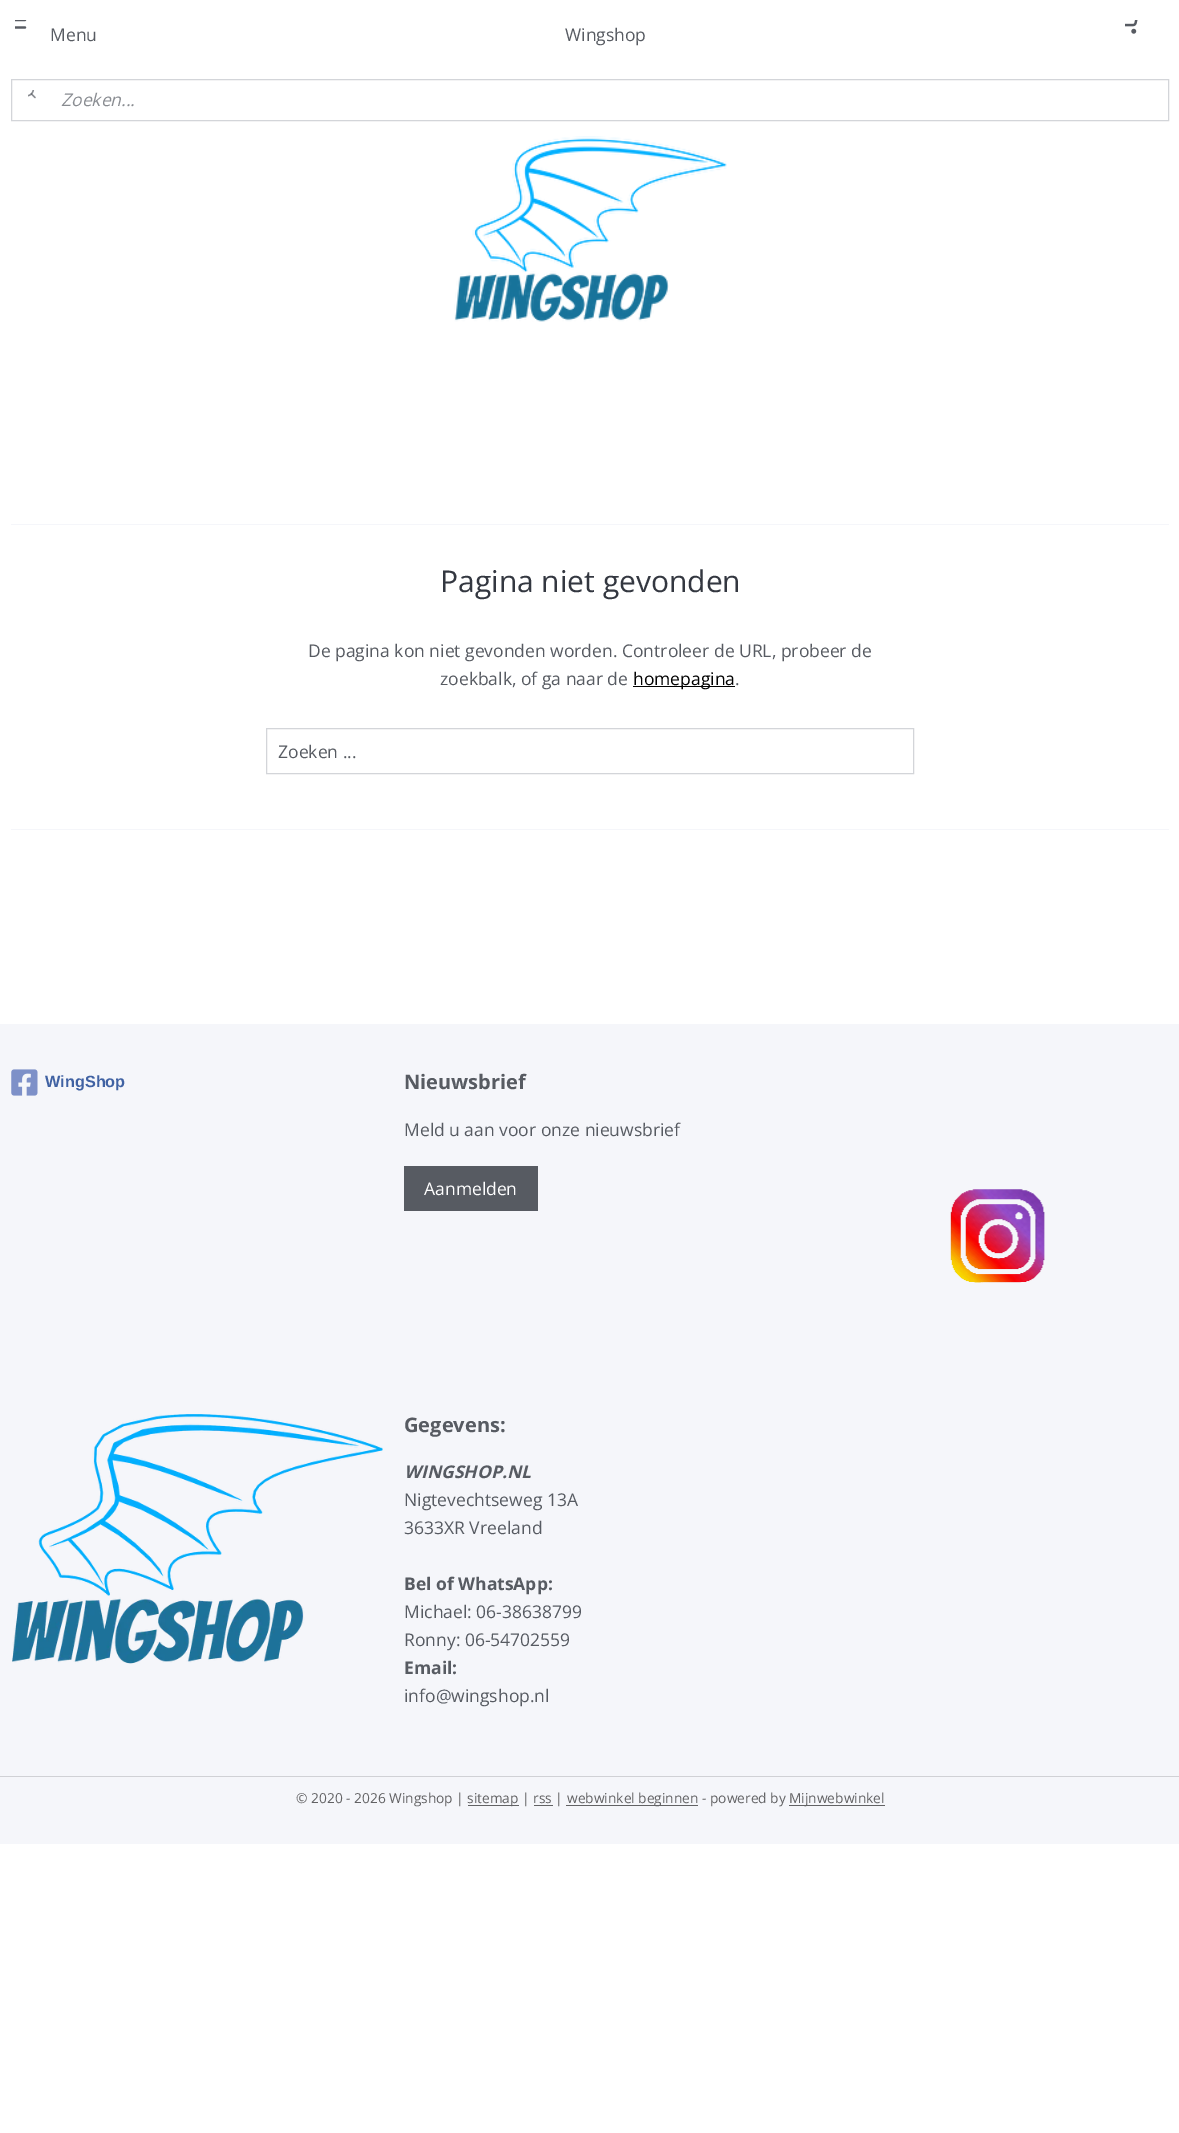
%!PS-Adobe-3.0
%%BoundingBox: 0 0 1179 2133
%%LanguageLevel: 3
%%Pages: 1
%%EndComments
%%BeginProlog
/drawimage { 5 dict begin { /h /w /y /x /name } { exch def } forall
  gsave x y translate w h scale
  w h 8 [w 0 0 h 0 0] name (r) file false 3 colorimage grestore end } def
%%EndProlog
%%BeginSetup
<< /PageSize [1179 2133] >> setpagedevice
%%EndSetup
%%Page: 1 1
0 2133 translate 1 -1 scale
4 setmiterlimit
1 setgray
0 0 1179 2133 rectfill
(images/1.raw) 15 20 12 9 drawimage
(images/2.raw) 1125 20 13 14 drawimage
0.827 0.835 0.851 setrgbcolor
11.5 79.5 1157 41 rectstroke
(images/3.raw) 28 90 8 9 drawimage
(images/4.raw) 454 136 273 186 drawimage
0.961 0.965 0.98 setrgbcolor
11 524 1158 1 rectfill
11 829 1158 1 rectfill
0.004 setgray
633 686 102 1 rectfill
0.827 0.835 0.851 setrgbcolor
266.5 728.5 647 45 rectstroke
0.961 0.965 0.98 setrgbcolor
0 1024 1179 752 rectfill
(images/5.raw) 11 1069 27 27 drawimage
0.341 0.357 0.384 setrgbcolor
404 1166 134 45 rectfill
(images/6.raw) 950 1189 95 94 drawimage
(images/7.raw) 12 1414 371 250 drawimage
0.961 0.965 0.98 setrgbcolor
0 1777 1179 67 rectfill
0.816 0.82 0.835 setrgbcolor
0 1776 1179 1 rectfill
0.384 0.384 0.392 setrgbcolor
468 1805 51 1 rectfill
566 1805 132 1 rectfill
789 1805 96 1 rectfill
534 1805 19 1 rectfill
/OpenSans-Regular [17.5 0 0 -17.5 0 0] selectfont
0.341 0.357 0.384 setrgbcolor
50 41 moveto (Menu) show
565 41 moveto (Wingshop) show
/OpenSans-Italic [17.5 0 0 -17.5 0 0] selectfont
0.537 0.549 0.569 setrgbcolor
61 106 moveto (Zoeken...) show
/OpenSans-Regular [30 0 0 -30 0 0] selectfont
0.2 0.216 0.251 setrgbcolor
440 592 moveto (Pagina niet gevonden) show
/OpenSans-Regular [17.5 0 0 -17.5 0 0] selectfont
0.341 0.357 0.384 setrgbcolor
308 657 moveto (De pagina kon niet gevonden worden. Controleer de URL, probeer de) show
440 685 moveto (zoekbalk, of ga naar de) show
0.004 setgray
633 685 moveto (homepagina) show
0.341 0.357 0.384 setrgbcolor
735 685 moveto (.) show
278 758 moveto (Zoeken ...) show
/LiberationSans-Bold [16.25 0 0 -16.25 0 0] selectfont
0.251 0.384 0.639 setrgbcolor
45 1087 moveto (WingShop) show
/OpenSans-Bold [20 0 0 -20 0 0] selectfont
0.341 0.357 0.384 setrgbcolor
404 1089 moveto (Nieuwsbrief) show
/OpenSans-Regular [17.5 0 0 -17.5 0 0] selectfont
404 1136 moveto (Meld u aan voor onze nieuwsbrief) show
1 setgray
424 1195 moveto (Aanmelden) show
/OpenSans-Bold [20 0 0 -20 0 0] selectfont
0.341 0.357 0.384 setrgbcolor
404 1432 moveto (Gegevens:) show
/OpenSans-BoldItalic [17.5 0 0 -17.5 0 0] selectfont
404 1478 moveto (WINGSHOP.NL) show
/OpenSans-Regular [17.5 0 0 -17.5 0 0] selectfont
404 1506 moveto (Nigtevechtseweg 13A) show
404 1534 moveto (3633XR Vreeland) show
/OpenSans-Bold [17.5 0 0 -17.5 0 0] selectfont
404 1590 moveto (Bel of WhatsApp:) show
/OpenSans-Regular [17.5 0 0 -17.5 0 0] selectfont
404 1618 moveto (Michael: 06-38638799) show
404 1646 moveto (Ronny: 06-54702559) show
/OpenSans-Bold [17.5 0 0 -17.5 0 0] selectfont
404 1674 moveto (Email:) show
/OpenSans-Regular [17.5 0 0 -17.5 0 0] selectfont
404 1702 moveto (info@wingshop.nl) show
/OpenSans-Regular [13.75 0 0 -13.75 0 0] selectfont
0.384 0.384 0.392 setrgbcolor
296 1803 moveto (© 2020 - 2026 Wingshop |) show
467 1803 moveto (sitemap | rss |) show
567 1803 moveto (webwinkel beginnen) show
702 1803 moveto (- powered by) show
789 1803 moveto (Mijnwebwinkel) show
showpage
%%EOF
